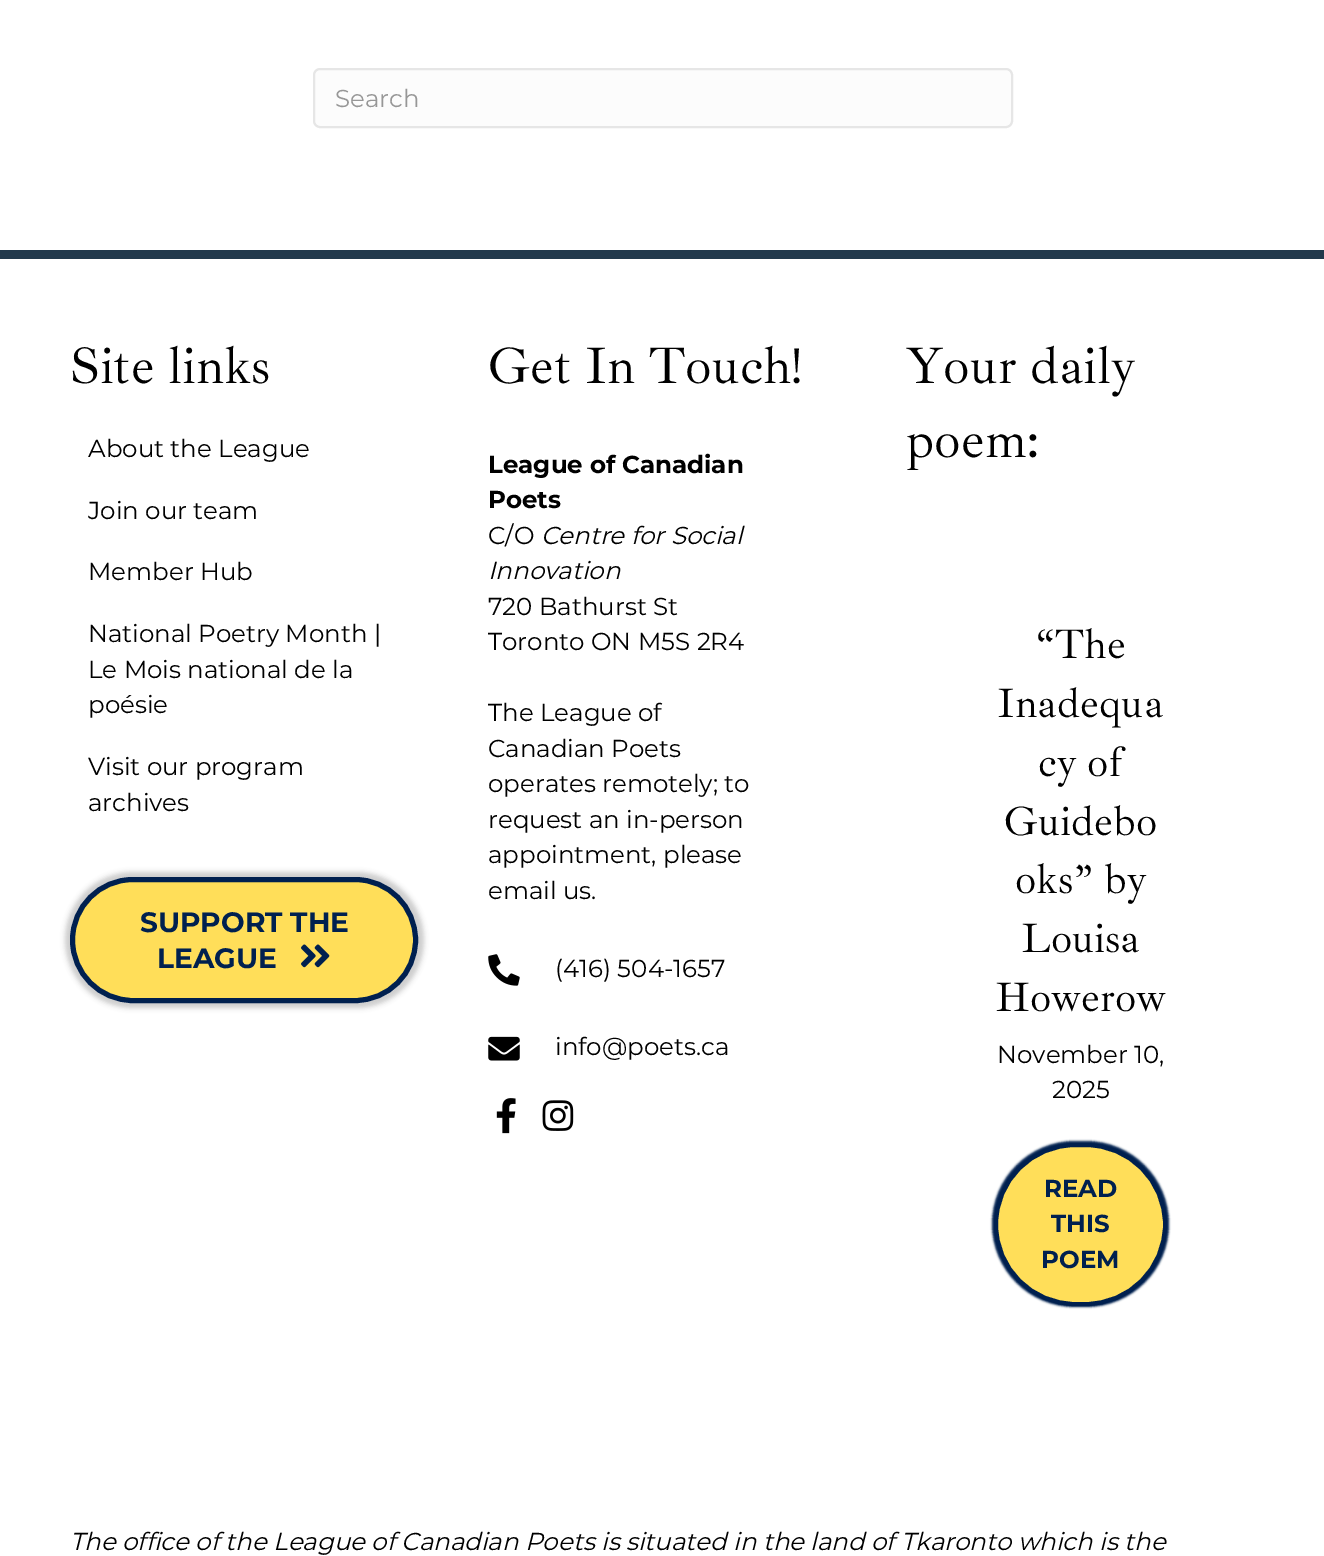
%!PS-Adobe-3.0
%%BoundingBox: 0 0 1324 1556
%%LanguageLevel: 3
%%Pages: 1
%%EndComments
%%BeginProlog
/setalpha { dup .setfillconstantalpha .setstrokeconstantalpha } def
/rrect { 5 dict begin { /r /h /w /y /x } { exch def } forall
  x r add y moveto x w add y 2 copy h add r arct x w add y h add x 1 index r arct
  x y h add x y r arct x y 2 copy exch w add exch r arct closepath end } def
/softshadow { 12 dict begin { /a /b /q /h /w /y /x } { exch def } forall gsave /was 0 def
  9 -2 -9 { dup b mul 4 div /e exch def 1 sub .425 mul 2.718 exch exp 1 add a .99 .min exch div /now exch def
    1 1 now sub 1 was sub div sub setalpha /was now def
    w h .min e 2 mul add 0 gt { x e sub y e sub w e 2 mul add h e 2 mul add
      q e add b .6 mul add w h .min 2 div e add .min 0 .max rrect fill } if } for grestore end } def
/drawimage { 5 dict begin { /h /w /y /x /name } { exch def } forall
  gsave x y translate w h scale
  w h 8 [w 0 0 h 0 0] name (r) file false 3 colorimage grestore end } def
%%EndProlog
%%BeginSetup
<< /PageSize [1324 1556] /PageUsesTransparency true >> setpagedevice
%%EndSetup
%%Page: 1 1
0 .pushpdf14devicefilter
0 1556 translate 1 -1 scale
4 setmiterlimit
1 setgray
0 0 1324 1556 rectfill
0.988 setgray
314 69 698 58 6 rrect gsave fill grestore
0.902 setgray
2 setlinewidth
stroke
0.133 0.224 0.298 setrgbcolor
0 250 1324 9 rectfill
0.8 setgray
65 872 359 136 68 2.5 1 softshadow
1 0.871 0.349 setrgbcolor
72.5 879.5 343 121 60.5 rrect gsave fill grestore
0 0.125 0.31 setrgbcolor
5 setlinewidth
stroke
(images/1.raw) 301 944 29 24 drawimage
(images/2.raw) 488 954 32 32 drawimage
(images/3.raw) 488 1036 32 25 drawimage
(images/4.raw) 496 1098 20 36 drawimage
(images/5.raw) 542 1100 32 31 drawimage
992 1141 177 166 83 1 1 softshadow
1 0.871 0.349 setrgbcolor
996 1145 169 159 79.5 rrect gsave fill grestore
0 0.125 0.31 setrgbcolor
4 setlinewidth
stroke
/Montserrat-Regular [24.5 0 0 -24.5 0 0] selectfont
0.592 setgray
335 107 moveto (Search) show
/IbarraRealNova-Regular [52.5 0 0 -52.5 0 0] selectfont
0 setgray
70 383 moveto (Site links) show
/Montserrat-Regular [24.5 0 0 -24.5 0 0] selectfont
88 457 moveto (About the League) show
88 519 moveto (Join our team) show
88 580 moveto (Member Hub) show
88 642 moveto (National Poetry Month |) show
88 678 moveto (Le Mois national de la) show
88 713 moveto (poésie) show
88 775 moveto (Visit our program) show
88 811 moveto (archives) show
/Montserrat-Bold [28 0 0 -28 0 0] selectfont
0 0.125 0.31 setrgbcolor
140 932 moveto (SUPPORT THE) show
157 968 moveto (LEAGUE) show
/IbarraRealNova-Regular [52.5 0 0 -52.5 0 0] selectfont
0 setgray
488 383 moveto (Get In Touch!) show
/Montserrat-Bold [24.5 0 0 -24.5 0 0] selectfont
488 473 moveto (League of Canadian) show
488 508 moveto (Poets) show
/Montserrat-Regular [24.5 0 0 -24.5 0 0] selectfont
488 544 moveto (C/O) show
/Montserrat-Italic [24.5 0 0 -24.5 0 0] selectfont
541 544 moveto (Centre for Social) show
488 579 moveto (Innovation) show
/Montserrat-Regular [24.5 0 0 -24.5 0 0] selectfont
488 615 moveto (720 Bathurst St) show
488 650 moveto (Toronto ON M5S 2R4) show
488 721 moveto (The League of) show
488 757 moveto (Canadian Poets) show
488 792 moveto (operates remotely; to) show
488 828 moveto (request an in-person) show
488 863 moveto (appointment, please) show
488 899 moveto (email us.) show
555 977 moveto (\(416\) 504-1657) show
555 1055 moveto (info@poets.ca) show
/IbarraRealNova-Regular [52.5 0 0 -52.5 0 0] selectfont
906 383 moveto (Your daily) show
906 457 moveto (poem:) show
/IbarraRealNova-Regular [42 0 0 -42 0 0] selectfont
1036 658 moveto (“The) show
997 717 moveto (Inadequa) show
1038 776 moveto (cy of) show
1004 835 moveto (Guidebo) show
1015 893 moveto (oks” by) show
1021 952 moveto (Louisa) show
995 1011 moveto (Howerow) show
/Montserrat-Regular [24.5 0 0 -24.5 0 0] selectfont
997 1063 moveto (November 10,) show
1052 1098 moveto (2025) show
/Montserrat-Bold [24.5 0 0 -24.5 0 0] selectfont
0 0.125 0.31 setrgbcolor
1044 1197 moveto (READ) show
1051 1232 moveto (THIS) show
1041 1268 moveto (POEM) show
/Montserrat-Italic [24.5 0 0 -24.5 0 0] selectfont
0 setgray
70 1550 moveto (The office of the League of Canadian Poets is situated in the land of Tkaronto which is the) show
.poppdf14devicefilter showpage
%%EOF
